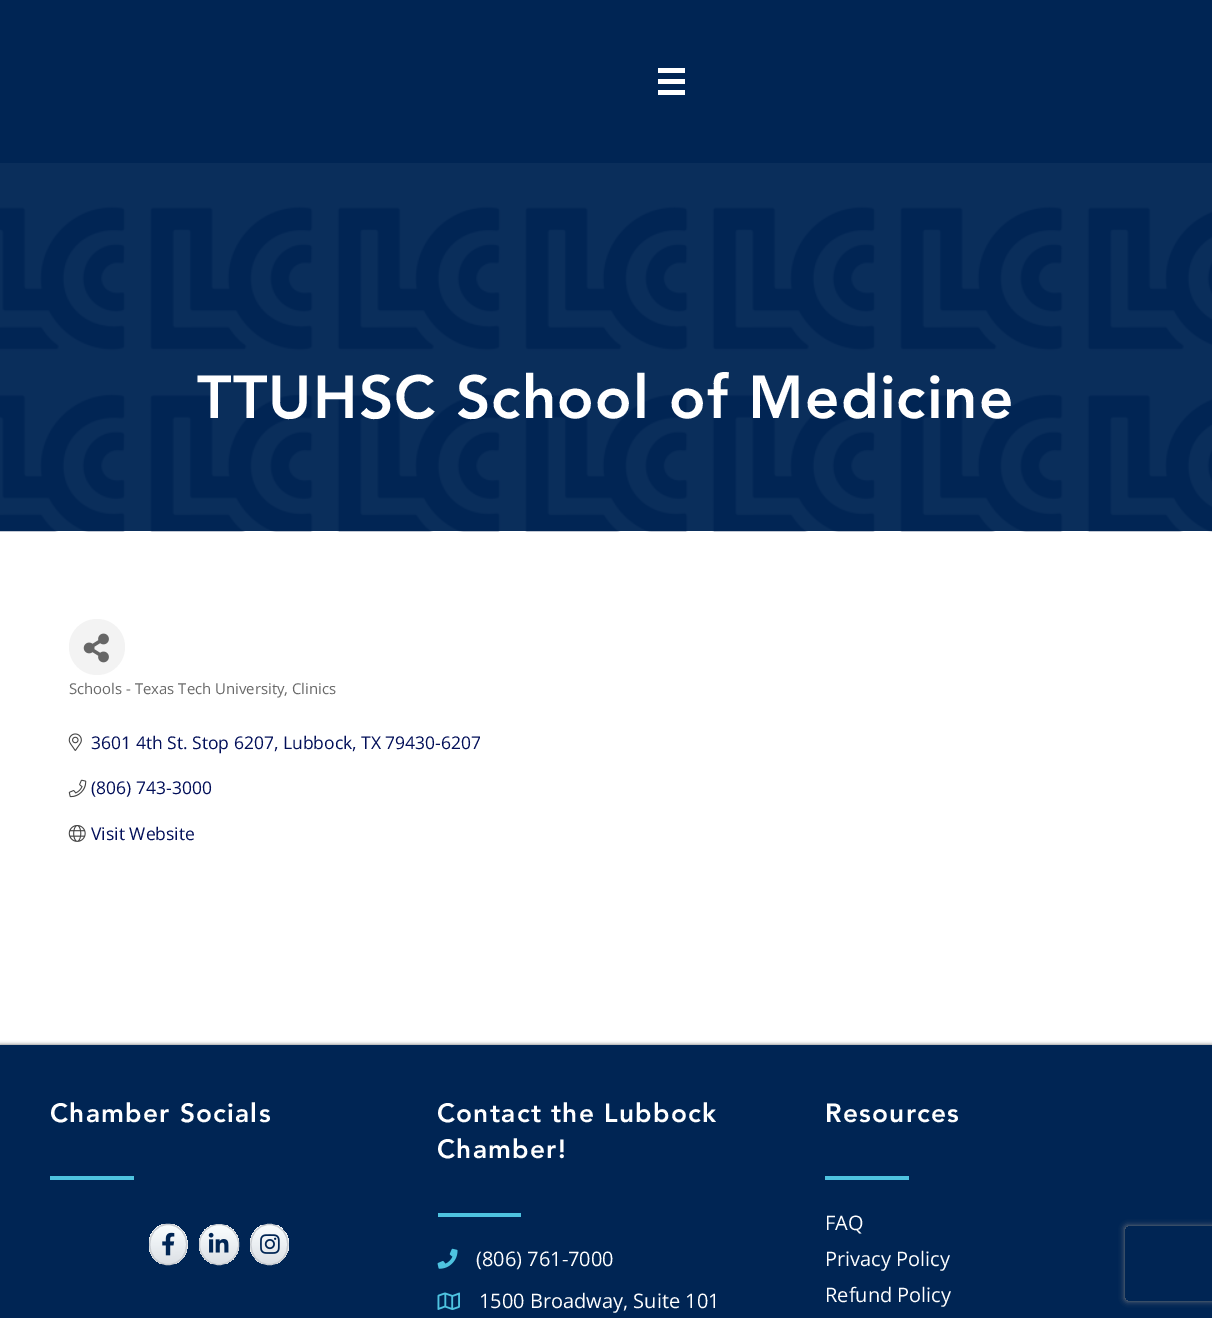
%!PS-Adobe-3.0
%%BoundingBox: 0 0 1212 1318
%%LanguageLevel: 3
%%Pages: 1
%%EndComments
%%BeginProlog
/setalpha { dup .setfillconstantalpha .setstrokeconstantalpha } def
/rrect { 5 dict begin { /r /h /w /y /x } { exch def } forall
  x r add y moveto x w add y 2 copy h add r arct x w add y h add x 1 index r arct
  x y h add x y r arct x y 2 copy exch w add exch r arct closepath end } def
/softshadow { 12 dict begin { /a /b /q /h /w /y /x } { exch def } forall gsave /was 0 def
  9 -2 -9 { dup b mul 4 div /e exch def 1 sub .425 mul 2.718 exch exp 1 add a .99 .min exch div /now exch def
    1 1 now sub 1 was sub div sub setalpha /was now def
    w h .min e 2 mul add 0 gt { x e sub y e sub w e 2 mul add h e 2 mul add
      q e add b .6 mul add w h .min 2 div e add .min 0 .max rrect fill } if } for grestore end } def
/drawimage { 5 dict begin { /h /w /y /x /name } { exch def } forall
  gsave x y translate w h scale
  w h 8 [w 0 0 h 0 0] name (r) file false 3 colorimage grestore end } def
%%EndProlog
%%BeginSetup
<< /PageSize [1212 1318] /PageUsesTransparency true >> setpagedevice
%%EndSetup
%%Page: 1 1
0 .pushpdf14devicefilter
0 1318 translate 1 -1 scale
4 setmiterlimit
1 setgray
0 0 1212 1318 rectfill
0.039 0.18 0.357 setrgbcolor
0 163 1212 368 rectfill
0 0.145 0.329 setrgbcolor
0 0 1212 163 rectfill
1 setgray
658 68 27 5 rectfill
658 79 27 5 rectfill
658 90 27 5 rectfill
(images/1.raw) 0 206 1212 326 drawimage
0.953 setgray
newpath 97 647 28 0 360 arc closepath fill
(images/2.raw) 83 633 26 30 drawimage
(images/3.raw) 68 733 14 18 drawimage
(images/4.raw) 68 779 19 19 drawimage
(images/5.raw) 68 825 18 17 drawimage
0.157 setgray
0 1045 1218 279 0 2 0.73 softshadow
0 0.145 0.329 setrgbcolor
0 1045 1212 273 rectfill
0.306 0.765 0.878 setrgbcolor
50 1176 84 4 rectfill
gsave newpath 168 1224 moveto 170.5 1224 172.5 1224 175 1225 curveto 161.5 1225 lineto 163.5 1224 166 1224 168 1224 curveto closepath clip newpath
<< /ShadingType 2 /ColorSpace /DeviceRGB /Coords [168 1186 168 1225] /Extend [true true] /Function << /FunctionType 2 /Domain [0 1] /C0 [0.98 0.996 1] /C1 [0.863 0.878 0.898] /N 1 >> >> shfill grestore
gsave newpath 149 1241 moveto 150 1233.5 155 1227.5 161.5 1225 curveto 175 1225 lineto 182 1228 187.5 1235.5 187.5 1244.5 curveto 187.5 1253.5 182 1261.5 174 1264 curveto 162 1264 lineto 155.5 1261.5 150 1255.5 149 1247.5 curveto closepath clip newpath
<< /ShadingType 2 /ColorSpace /DeviceRGB /Coords [168 1225 168 1264] /Extend [true true] /Function << /FunctionType 2 /Domain [0 1] /C0 [0.98 0.996 1] /C1 [0.863 0.878 0.898] /N 1 >> >> shfill grestore
0.784 0.8 0.82 setrgbcolor
1.2 setlinewidth
newpath 168 1224.5 moveto 193 1224.5 193 1264.5 168 1264.5 curveto 143.5 1264.5 143.5 1224.5 168 1224.5 curveto closepath stroke
(images/6.raw) 162 1232 13 24 drawimage
gsave
199 1224 40 41 20 rrect clip newpath
gsave newpath 199 1225 moveto 239 1225 lineto 239 1264 lineto 199 1264 lineto closepath clip newpath
<< /ShadingType 2 /ColorSpace /DeviceRGB /Coords [219 1225 219 1264] /Extend [true true] /Function << /FunctionType 2 /Domain [0 1] /C0 [0.98 0.996 1] /C1 [0.863 0.878 0.898] /N 1 >> >> shfill grestore
grestore
1 setlinewidth
199.5 1224.5 39 40 19.5 rrect stroke
(images/7.raw) 208 1232 21 21 drawimage
gsave newpath 263.5 1264 moveto 255.5 1261.5 250 1253.5 250 1244.5 curveto 250 1235.5 255.5 1228 262.5 1225 curveto 276 1225 lineto 283.5 1228 289 1235.5 289 1244.5 curveto 289 1253.5 283 1261.5 275.5 1264 curveto closepath clip newpath
<< /ShadingType 2 /ColorSpace /DeviceRGB /Coords [269 1225 269 1264] /Extend [true true] /Function << /FunctionType 2 /Domain [0 1] /C0 [0.98 0.996 1] /C1 [0.863 0.878 0.898] /N 1 >> >> shfill grestore
1.2 setlinewidth
newpath 269.5 1224.5 moveto 294 1224.5 294 1264.5 269.5 1264.5 curveto 244.5 1264.5 244.5 1224.5 269.5 1224.5 curveto closepath stroke
(images/8.raw) 260 1234 20 20 drawimage
0.306 0.765 0.878 setrgbcolor
438 1213 83 4 rectfill
(images/9.raw) 437 1248 21 21 drawimage
(images/10.raw) 437 1292 23 18 drawimage
825 1176 84 4 rectfill
gsave
newpath 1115 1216 moveto 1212 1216 lineto 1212 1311 lineto 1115 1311 lineto closepath 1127.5 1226 moveto 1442.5 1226 lineto 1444 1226 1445 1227 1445 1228.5 curveto 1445 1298.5 lineto 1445 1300 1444 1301 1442.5 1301 curveto 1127.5 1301 lineto 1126 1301 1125 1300 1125 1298.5 curveto 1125 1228.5 lineto 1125 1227 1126 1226 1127.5 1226 curveto closepath eoclip newpath
0.502 setgray
1125 1226 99 75 2.5 3 1 softshadow
grestore
/Avenir-Black [60 0 0 -60 0 0] selectfont
1 setgray
197 418 moveto 1.25 0 (TTUHSC School of Medicine) ashow
/OpenSans-Regular [14.9 0 0 -14.9 0 0] selectfont
0.412 setgray
69 694 moveto (Schools - Texas Tech University, Clinics) show
/OpenSans-Regular [17.5 0 0 -17.5 0 0] selectfont
0.008 0.059 0.349 setrgbcolor
91 749 moveto (3601 4th St. Stop 6207, Lubbock, TX 79430-6207) show
91 794 moveto (\(806\) 743-3000) show
91 840 moveto (Visit Website) show
/Avenir-Black [26.25 0 0 -26.25 0 0] selectfont
1 setgray
50 1122 moveto 1.25 0 (Chamber Socials) ashow
437 1122 moveto 1.25 0 (Contact the Lubbock) ashow
437 1158 moveto 1.25 0 (Chamber!) ashow
/OpenSans-Regular [20 0 0 -20 0 0] selectfont
476 1266 moveto (\(806\) 761-7000) show
479 1308 moveto (1500 Broadway, Suite 101) show
/Avenir-Black [26.25 0 0 -26.25 0 0] selectfont
825 1122 moveto 1.25 0 (Resources) ashow
/OpenSans-Regular [20 0 0 -20 0 0] selectfont
825 1230 moveto (FAQ) show
825 1266 moveto (Privacy Policy) show
825 1302 moveto (Refund Policy) show
.poppdf14devicefilter showpage
%%EOF
